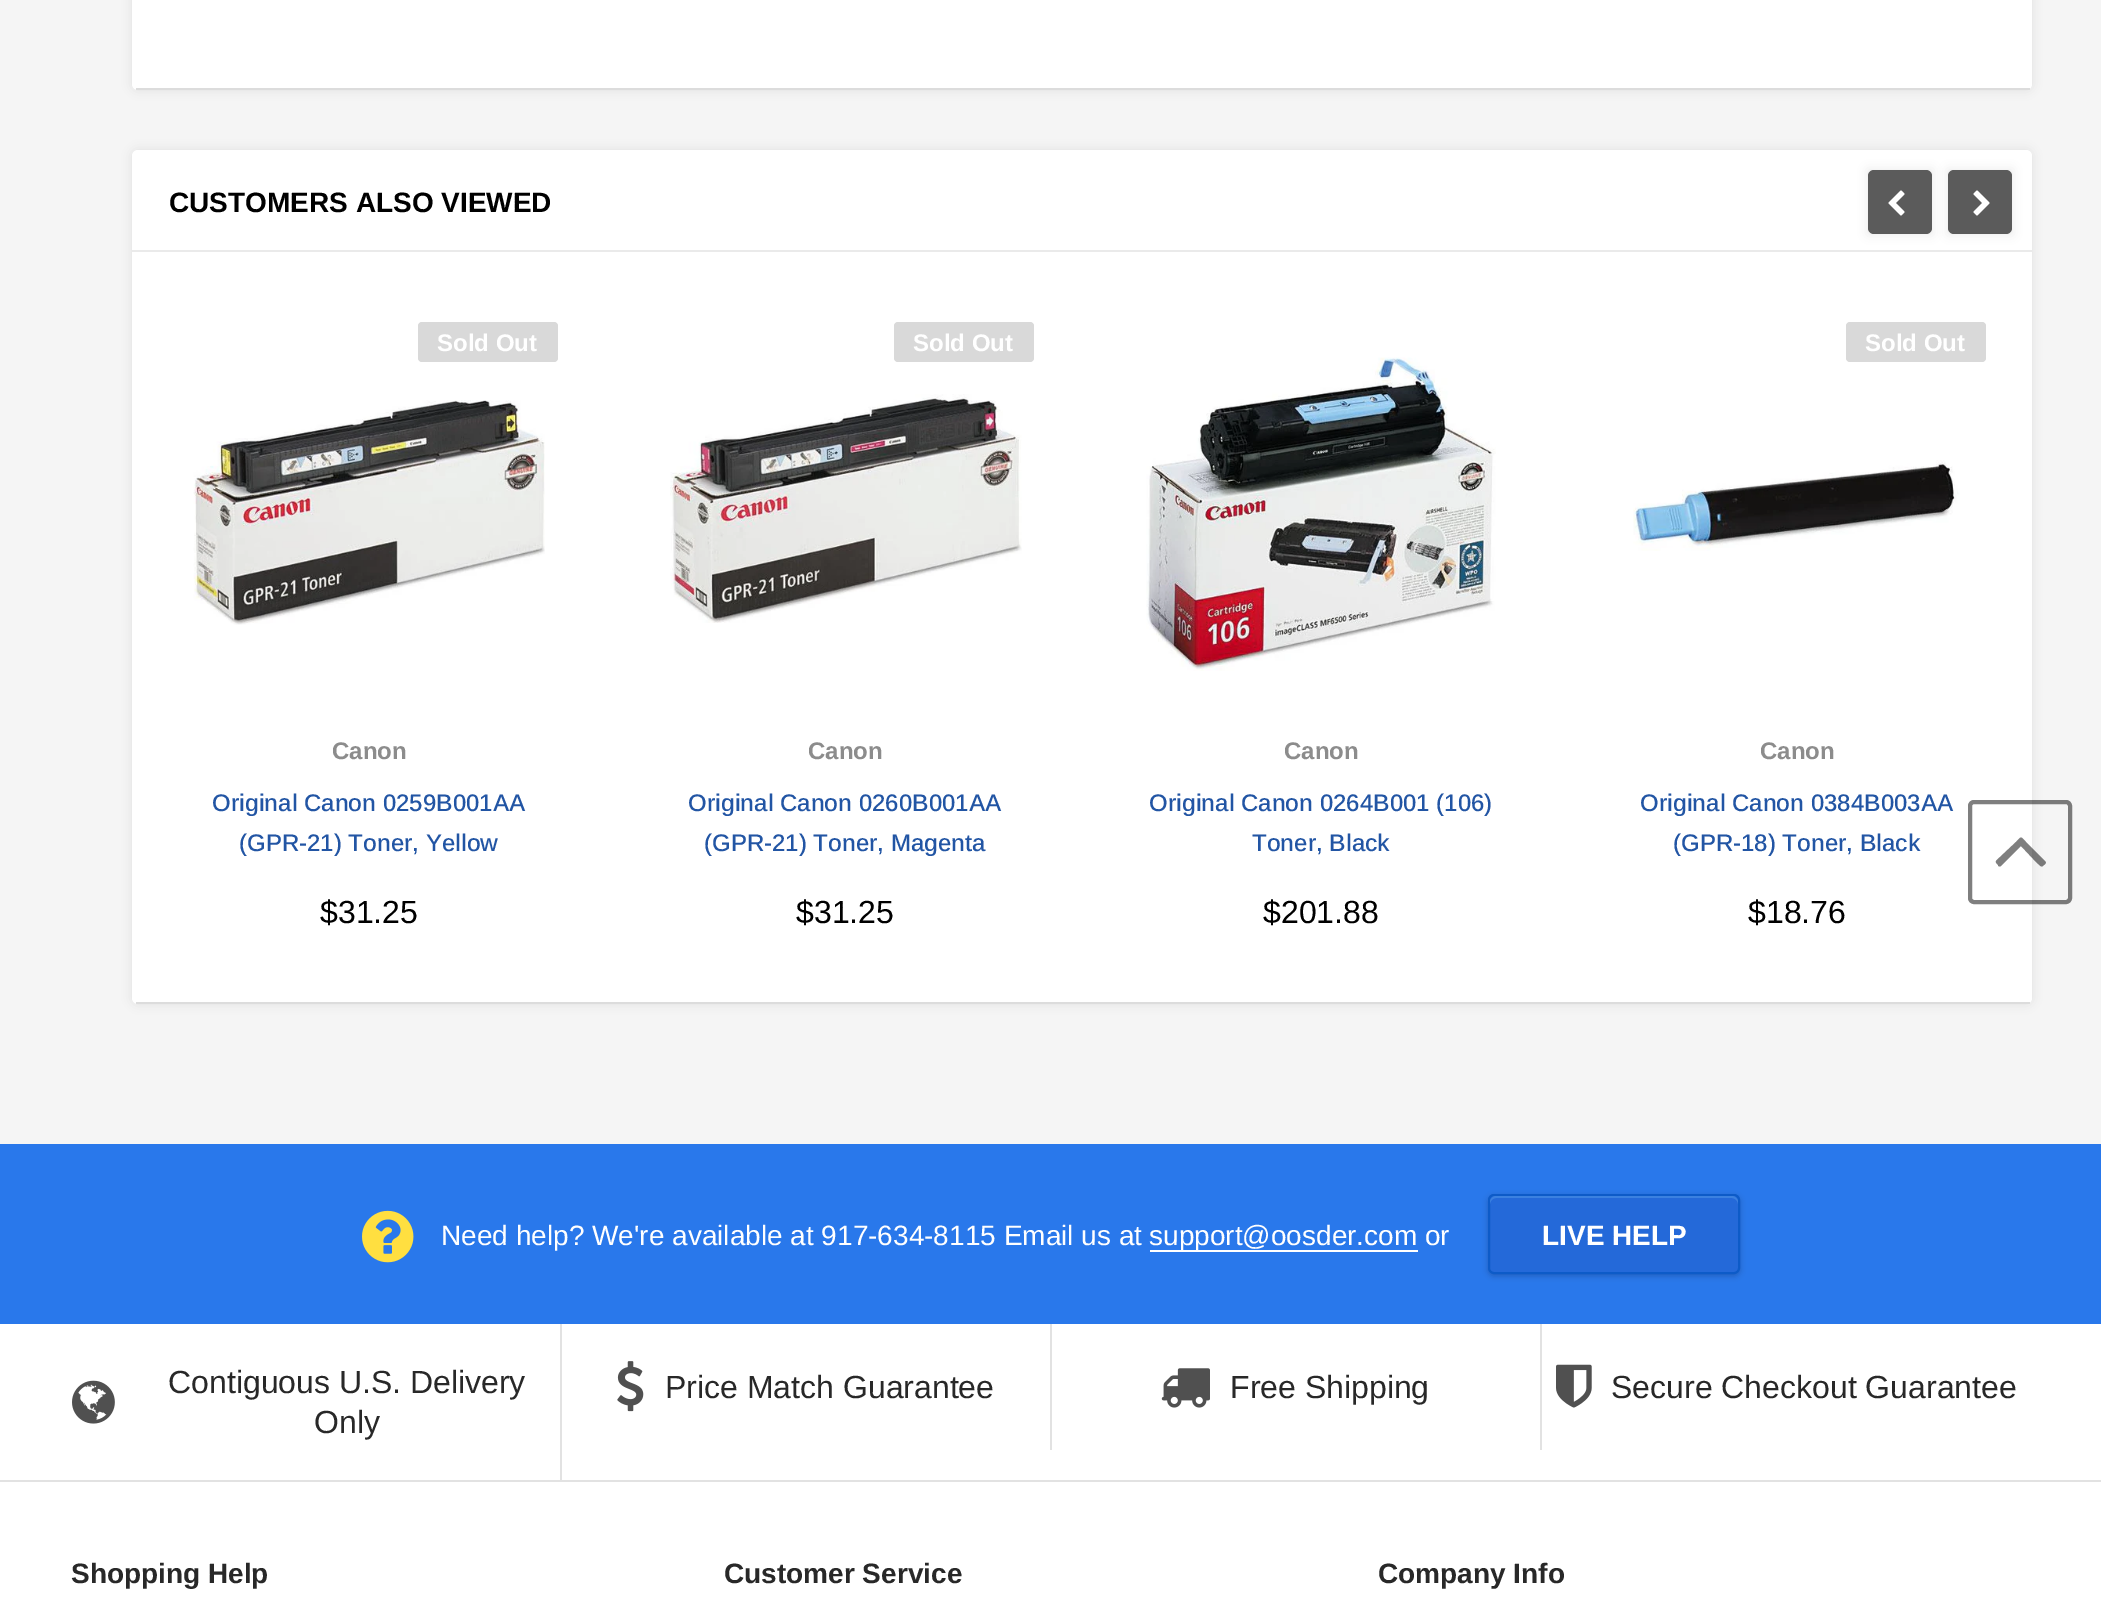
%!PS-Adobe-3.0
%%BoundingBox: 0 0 2101 1598
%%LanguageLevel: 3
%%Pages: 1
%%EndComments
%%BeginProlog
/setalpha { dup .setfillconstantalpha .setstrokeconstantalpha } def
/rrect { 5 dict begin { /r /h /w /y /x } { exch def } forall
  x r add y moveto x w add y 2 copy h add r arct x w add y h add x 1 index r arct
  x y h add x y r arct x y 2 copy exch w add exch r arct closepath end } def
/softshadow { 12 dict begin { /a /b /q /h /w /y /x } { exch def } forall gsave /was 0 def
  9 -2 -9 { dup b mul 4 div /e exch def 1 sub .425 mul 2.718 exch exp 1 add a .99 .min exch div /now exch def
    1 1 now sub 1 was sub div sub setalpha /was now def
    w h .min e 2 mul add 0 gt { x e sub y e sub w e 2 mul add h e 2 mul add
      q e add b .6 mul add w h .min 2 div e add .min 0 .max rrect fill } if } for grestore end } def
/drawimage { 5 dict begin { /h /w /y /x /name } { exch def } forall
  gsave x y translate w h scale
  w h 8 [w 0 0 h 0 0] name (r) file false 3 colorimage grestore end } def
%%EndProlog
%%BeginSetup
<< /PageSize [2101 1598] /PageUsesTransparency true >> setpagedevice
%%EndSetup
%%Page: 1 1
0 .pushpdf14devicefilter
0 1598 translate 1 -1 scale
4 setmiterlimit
0.961 setgray
0 0 2101 1598 rectfill
0 setgray
132 -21 1900 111 6 5 0.08 softshadow
1 setgray
132 -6 1900 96 6 rrect fill
0.863 setgray
136 88 1894 2 rectfill
0 setgray
132 150 1900 854 6 5 0.08 softshadow
1 setgray
132 150 1900 854 6 rrect fill
0.863 setgray
136 1002 1894 2 rectfill
0.918 setgray
132 250 1900 2 rectfill
0 setgray
1868 170 64 64 0 5 0.08 softshadow
0.357 setgray
1868 170 64 64 6 rrect fill
(images/1.raw) 1888 190 17 26 drawimage
0 setgray
1948 170 64 64 0 5 0.08 softshadow
0.357 setgray
1948 170 64 64 6 rrect fill
(images/2.raw) 1973 190 17 26 drawimage
0.851 setgray
418 322 140 40 4 rrect fill
(images/3.raw) 193 400 352 225 drawimage
894 322 140 40 4 rrect fill
(images/4.raw) 670 394 352 229 drawimage
(images/5.raw) 1146 357 350 314 drawimage
1846 322 140 40 4 rrect fill
(images/6.raw) 1633 460 327 91 drawimage
0.5 setalpha
0 setgray
4 setlinewidth
1970 802 100 100 4 rrect stroke
newpath 2045 861 moveto 2047 863 2045 864 2044 865 curveto 2041 868 2041 866 2037 863 curveto 2021 846 lineto 2001 866 lineto 1999 867 1998 866 1998 865 curveto 1994 861 1996 861 2000 857 curveto 2016 842 lineto 2022 836 2020 836 2026 842 curveto closepath fill
1 setalpha
0.161 0.471 0.922 setrgbcolor
0 1144 2101 180 rectfill
(images/7.raw) 362 1210 52 53 drawimage
1 setgray
1150 1250 268 2 rectfill
0 setgray
1488 1196 252 80 6 3 0.2 softshadow
0.141 0.412 0.851 setrgbcolor
1489 1195 250 78 5 rrect gsave fill grestore
0.051 0.357 0.784 setrgbcolor
2 setlinewidth
stroke
0.231 0.506 0.878 setrgbcolor
newpath 1496 1198 moveto 1732 1198 lineto 1735 1198 1738 1201 1738 1204 curveto 1738 1202 lineto 1738 1199 1735 1196 1732 1196 curveto 1496 1196 lineto 1493 1196 1490 1199 1490 1202 curveto 1490 1204 lineto 1490 1201 1493 1198 1496 1198 curveto closepath fill
1 setgray
0 1324 2101 156 rectfill
0.886 setgray
0 1480 2101 2 rectfill
560 1324 2 156 rectfill
(images/8.raw) 72 1380 43 44 drawimage
1050 1324 2 126 rectfill
(images/9.raw) 617 1361 27 51 drawimage
1540 1324 2 126 rectfill
(images/10.raw) 1161 1368 49 40 drawimage
(images/11.raw) 1556 1364 36 44 drawimage
1 setgray
0 1482 2101 116 rectfill
/Arimo-Bold [28 0 0 -28 0 0] selectfont
0 setgray
169 212 moveto (CUSTOMERS ALSO VIEWED) show
/Arimo-Bold [24 0 0 -24 0 0] selectfont
1 setgray
437 351 moveto (Sold Out) show
0.549 setgray
332 759 moveto (Canon) show
/Arimo-Medium [24 0 0 -24 0 0] selectfont
0.133 0.333 0.643 setrgbcolor
212 811 moveto (Original Canon 0259B001AA) show
239 851 moveto (\(GPR-21\) Toner, Yellow) show
/Arimo-Regular [32 0 0 -32 0 0] selectfont
0 setgray
320 923 moveto ($31.25) show
/Arimo-Bold [24 0 0 -24 0 0] selectfont
1 setgray
913 351 moveto (Sold Out) show
0.549 setgray
808 759 moveto (Canon) show
/Arimo-Medium [24 0 0 -24 0 0] selectfont
0.133 0.333 0.643 setrgbcolor
688 811 moveto (Original Canon 0260B001AA) show
704 851 moveto (\(GPR-21\) Toner, Magenta) show
/Arimo-Regular [32 0 0 -32 0 0] selectfont
0 setgray
796 923 moveto ($31.25) show
/Arimo-Bold [24 0 0 -24 0 0] selectfont
0.549 setgray
1284 759 moveto (Canon) show
/Arimo-Medium [24 0 0 -24 0 0] selectfont
0.133 0.333 0.643 setrgbcolor
1149 811 moveto (Original Canon 0264B001 \(106\)) show
1252 851 moveto (Toner, Black) show
/Arimo-Regular [32 0 0 -32 0 0] selectfont
0 setgray
1263 923 moveto ($201.88) show
/Arimo-Bold [24 0 0 -24 0 0] selectfont
1 setgray
1865 351 moveto (Sold Out) show
0.549 setgray
1760 759 moveto (Canon) show
/Arimo-Medium [24 0 0 -24 0 0] selectfont
0.133 0.333 0.643 setrgbcolor
1640 811 moveto (Original Canon 0384B003AA) show
1673 851 moveto (\(GPR-18\) Toner, Black) show
/Arimo-Regular [32 0 0 -32 0 0] selectfont
0 setgray
1748 923 moveto ($18.76) show
/Arimo-Regular [28 0 0 -28 0 0] selectfont
1 setgray
441 1245 moveto (Need help? We're available at 917-634-8115 Email us at) show
1149 1245 moveto (support@oosder.com or) show
/Arimo-Bold [28 0 0 -28 0 0] selectfont
1542 1245 moveto (LIVE HELP) show
/Arimo-Regular [32 0 0 -32 0 0] selectfont
0.157 setgray
168 1393 moveto (Contiguous U.S. Delivery) show
314 1433 moveto (Only) show
665 1398 moveto (Price Match Guarantee) show
1230 1398 moveto (Free Shipping) show
1611 1398 moveto (Secure Checkout Guarantee) show
/Arimo-Bold [28 0 0 -28 0 0] selectfont
71 1583 moveto (Shopping Help) show
724 1583 moveto (Customer Service) show
1378 1583 moveto (Company Info) show
.poppdf14devicefilter showpage
%%EOF
